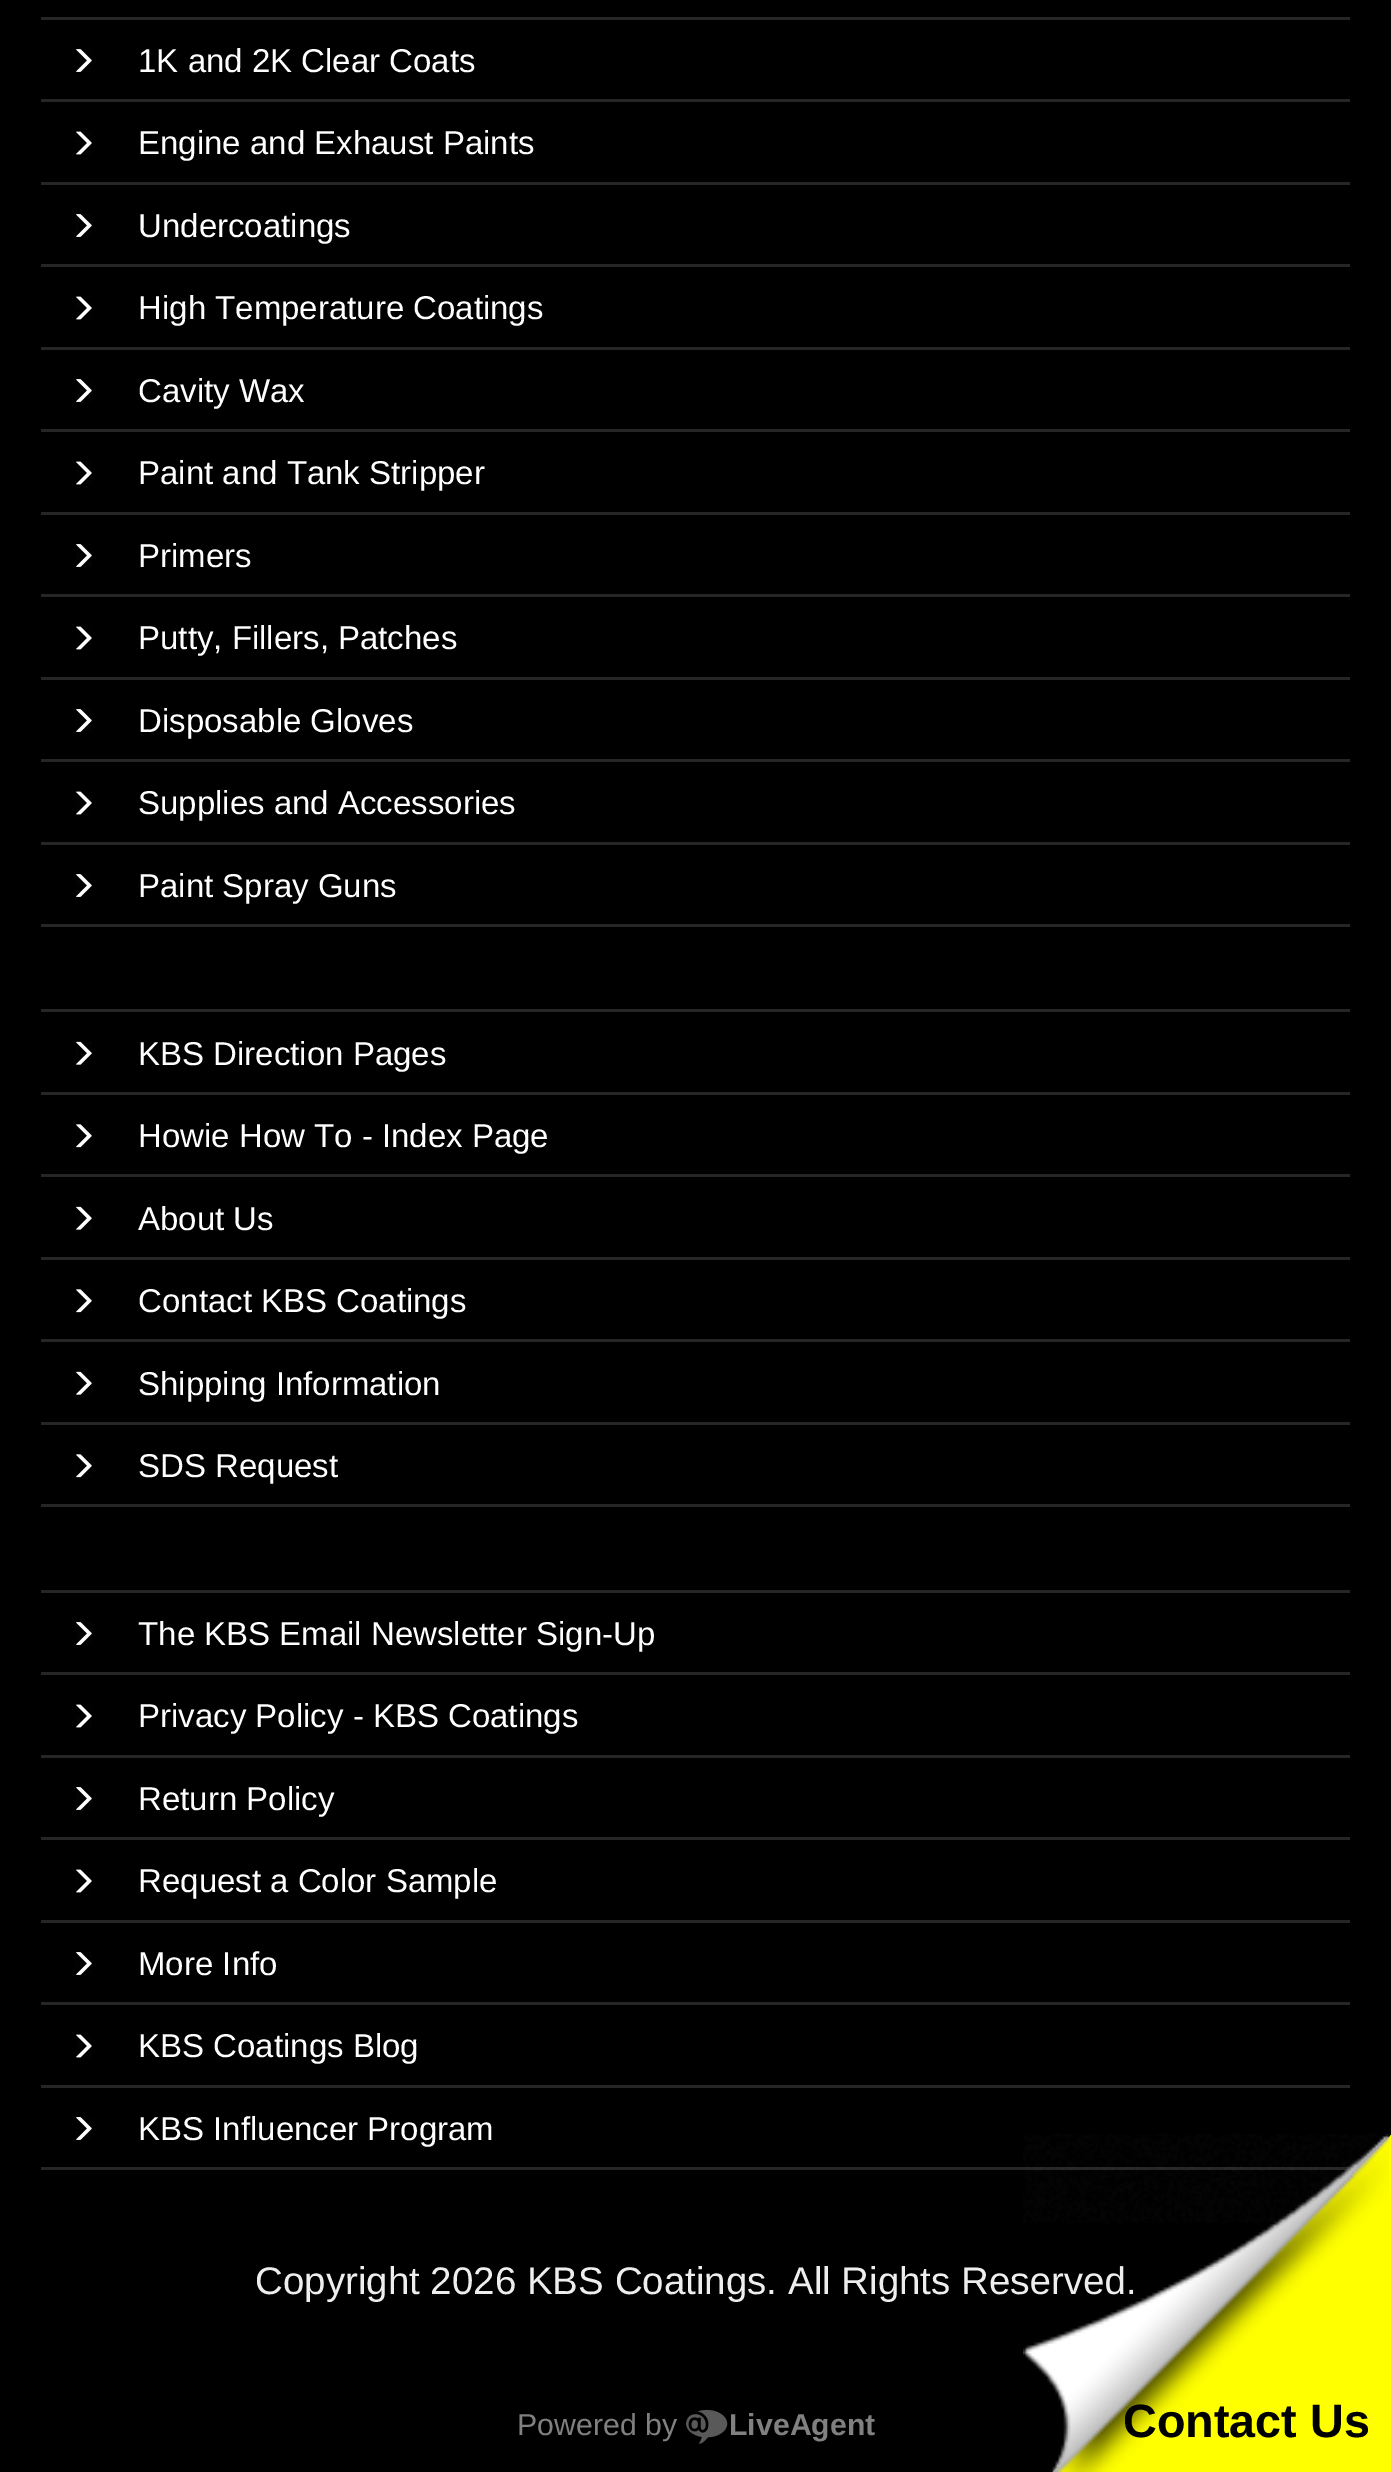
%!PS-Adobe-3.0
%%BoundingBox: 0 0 1391 2472
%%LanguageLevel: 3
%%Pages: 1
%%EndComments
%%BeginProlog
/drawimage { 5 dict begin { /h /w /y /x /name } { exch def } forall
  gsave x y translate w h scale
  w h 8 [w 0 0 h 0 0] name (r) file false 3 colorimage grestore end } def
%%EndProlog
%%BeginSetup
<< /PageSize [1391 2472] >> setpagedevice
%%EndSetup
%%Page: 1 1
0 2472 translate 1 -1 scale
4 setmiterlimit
0 setgray
0 0 1391 2472 rectfill
0.149 setgray
41 2167 1309 3 rectfill
41 2085 1309 3 rectfill
41 2002 1309 3 rectfill
41 1920 1309 3 rectfill
41 1837 1309 3 rectfill
41 1755 1309 3 rectfill
41 1672 1309 3 rectfill
41 1590 1309 3 rectfill
41 1504 1309 3 rectfill
41 1422 1309 3 rectfill
41 1339 1309 3 rectfill
41 1257 1309 3 rectfill
41 1174 1309 3 rectfill
41 1092 1309 3 rectfill
41 1009 1309 3 rectfill
41 924 1309 3 rectfill
41 842 1309 3 rectfill
41 759 1309 3 rectfill
41 677 1309 3 rectfill
41 594 1309 3 rectfill
41 512 1309 3 rectfill
41 429 1309 3 rectfill
41 347 1309 3 rectfill
41 264 1309 3 rectfill
41 182 1309 3 rectfill
41 99 1309 3 rectfill
41 17 1309 3 rectfill
(images/1.raw) 76 49 16 23 drawimage
(images/2.raw) 76 131 16 24 drawimage
(images/3.raw) 76 214 16 23 drawimage
(images/4.raw) 76 296 16 24 drawimage
(images/5.raw) 76 379 16 23 drawimage
(images/6.raw) 76 461 16 24 drawimage
(images/7.raw) 76 544 16 23 drawimage
(images/8.raw) 76 626 16 24 drawimage
(images/9.raw) 76 709 16 23 drawimage
(images/10.raw) 76 791 16 24 drawimage
(images/1.raw) 76 874 16 23 drawimage
(images/11.raw) 76 1041 16 24 drawimage
(images/12.raw) 76 1124 16 24 drawimage
(images/13.raw) 76 1206 16 24 drawimage
(images/14.raw) 76 1289 16 24 drawimage
(images/15.raw) 76 1371 16 24 drawimage
(images/16.raw) 76 1454 16 24 drawimage
(images/17.raw) 76 1622 16 23 drawimage
(images/18.raw) 76 1704 16 24 drawimage
(images/19.raw) 76 1787 16 23 drawimage
(images/20.raw) 76 1869 16 24 drawimage
(images/21.raw) 76 1952 16 23 drawimage
(images/22.raw) 76 2034 16 24 drawimage
(images/23.raw) 76 2117 16 23 drawimage
(images/24.raw) 686 2409 42 35 drawimage
/LiberationSans-Regular [33 0 0 -33 0 0] selectfont
1 setgray
138 72 moveto (1K and 2K Clear Coats) show
138 154 moveto (Engine and Exhaust Paints) show
138 237 moveto (Undercoatings) show
138 319 moveto (High Temperature Coatings) show
138 402 moveto (Cavity Wax) show
138 484 moveto (Paint and Tank Stripper) show
138 567 moveto (Primers) show
138 649 moveto (Putty, Fillers, Patches) show
138 732 moveto (Disposable Gloves) show
138 814 moveto (Supplies and Accessories) show
138 897 moveto (Paint Spray Guns) show
138 1065 moveto (KBS Direction Pages) show
138 1147 moveto (Howie How To - Index Page) show
138 1230 moveto (About Us) show
138 1312 moveto (Contact KBS Coatings) show
138 1395 moveto (Shipping Information) show
138 1477 moveto (SDS Request) show
138 1645 moveto (The KBS Email Newsletter Sign-Up) show
138 1727 moveto (Privacy Policy - KBS Coatings) show
138 1810 moveto (Return Policy) show
138 1892 moveto (Request a Color Sample) show
138 1975 moveto (More Info) show
138 2057 moveto (KBS Coatings Blog) show
138 2140 moveto (KBS Influencer Program) show
/LiberationSans-Regular [38.5 0 0 -38.5 0 0] selectfont
0.933 setgray
255 2294 moveto (Copyright 2026 KBS Coatings. All Rights Reserved.) show
/LiberationSans-Regular [30.25 0 0 -30.25 0 0] selectfont
0.502 setgray
517 2435 moveto (Powered by) show
/LiberationSans-Bold [30.25 0 0 -30.25 0 0] selectfont
729 2435 moveto (LiveAgent) show
1 1 0 setrgbcolor
newpath 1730 2472 moveto 1053 2472 lineto 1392 2134 lineto closepath fill
(images/25.raw) 1023 2134 367 338 drawimage
/LiberationSans-Bold [46.75 0 0 -46.75 0 0] selectfont
0 setgray
1123 2437 moveto (Contact Us) show
showpage
%%EOF
